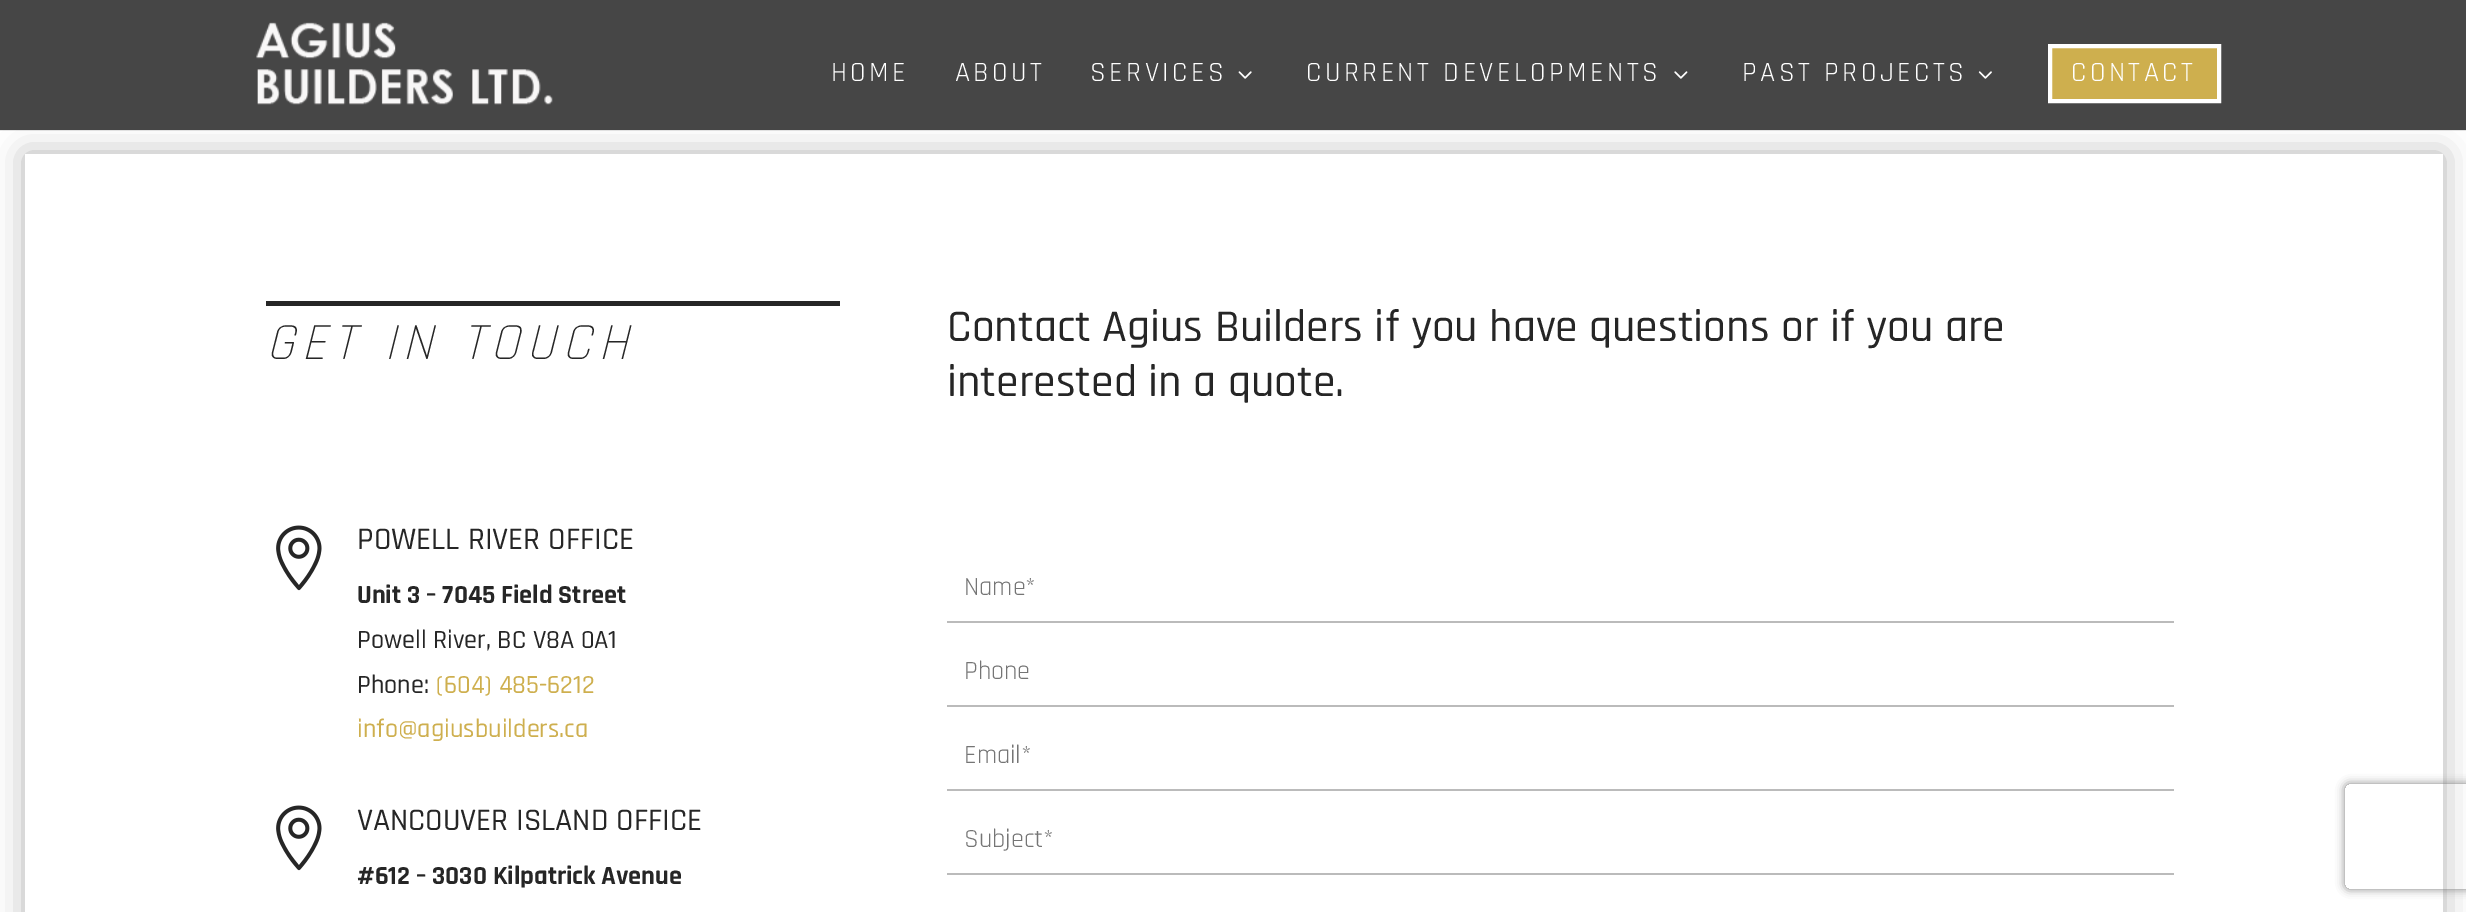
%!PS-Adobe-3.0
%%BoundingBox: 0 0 2466 912
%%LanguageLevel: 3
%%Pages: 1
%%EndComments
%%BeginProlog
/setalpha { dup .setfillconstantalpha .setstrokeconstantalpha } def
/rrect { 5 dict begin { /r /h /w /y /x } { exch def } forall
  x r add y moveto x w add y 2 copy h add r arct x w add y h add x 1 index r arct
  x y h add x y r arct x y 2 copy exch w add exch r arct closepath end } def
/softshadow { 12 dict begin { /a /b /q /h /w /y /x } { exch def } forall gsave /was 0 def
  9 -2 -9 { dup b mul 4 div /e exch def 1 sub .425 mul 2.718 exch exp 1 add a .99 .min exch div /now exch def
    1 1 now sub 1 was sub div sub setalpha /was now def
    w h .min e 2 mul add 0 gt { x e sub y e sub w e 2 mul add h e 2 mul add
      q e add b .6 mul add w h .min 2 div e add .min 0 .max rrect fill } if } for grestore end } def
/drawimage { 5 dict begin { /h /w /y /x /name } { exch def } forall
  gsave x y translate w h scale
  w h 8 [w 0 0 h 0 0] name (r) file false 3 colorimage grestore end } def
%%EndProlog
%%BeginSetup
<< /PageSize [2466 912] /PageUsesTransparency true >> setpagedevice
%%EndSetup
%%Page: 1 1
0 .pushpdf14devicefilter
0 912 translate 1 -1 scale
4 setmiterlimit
1 setgray
0 0 2466 912 rectfill
gsave
newpath 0 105 moveto 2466 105 lineto 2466 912 lineto 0 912 lineto closepath 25 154 moveto 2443 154 lineto 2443 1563 lineto 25 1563 lineto closepath eoclip newpath
0 setgray
25 154 2418 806 0 16 0.3 softshadow
grestore
0.1 setalpha
0 setgray
newpath 0 130 moveto 0 131 lineto 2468 131 lineto 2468 2 lineto 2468 130 lineto closepath fill
1 setalpha
0.275 setgray
0 0 2466 130 rectfill
(images/1.raw) 256 22 297 83 drawimage
(images/2.raw) 1238 71 14 8 drawimage
(images/3.raw) 1674 71 14 8 drawimage
(images/4.raw) 1978 71 14 8 drawimage
0.808 0.686 0.306 setrgbcolor
newpath 2050 46 moveto 2219 46 lineto 2219 101 lineto 2050 101 lineto closepath gsave fill grestore
1 setgray
4 setlinewidth
stroke
0.149 setgray
266 301 574 5 rectfill
(images/5.raw) 276 525 46 66 drawimage
(images/5.raw) 276 805 46 66 drawimage
0.733 setgray
947 621 1227 2 rectfill
947 705 1227 2 rectfill
947 789 1227 2 rectfill
947 873 1227 2 rectfill
gsave
newpath 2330 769 moveto 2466 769 lineto 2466 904 lineto 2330 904 lineto closepath 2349 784 moveto 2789 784 lineto 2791 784 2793 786 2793 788 curveto 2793 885 lineto 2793 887 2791 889 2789 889 curveto 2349 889 lineto 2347 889 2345 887 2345 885 curveto 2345 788 lineto 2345 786 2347 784 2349 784 curveto closepath eoclip newpath
0.502 setgray
2345 784 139 105 4 4.5 1 softshadow
grestore
/Rajdhani-Regular [28 0 0 -28 0 0] selectfont
1 setgray
831 81 moveto 3.5 0 (HOME) ashow
955 81 moveto 3.5 0 (ABOUT) ashow
1090 81 moveto 3.5 0 (SERVICES) ashow
1306 81 moveto 3.5 0 (CURRENT DEVELOPMENTS) ashow
1742 81 moveto 3.5 0 (PAST PROJECTS) ashow
2071 81 moveto 3.5 0 (CONTACT) ashow
/Rajdhani-LightItalic [52.5 0 0 -52.5 0 0] selectfont
0.149 setgray
266 359 moveto 7 0 (GET IN TOUCH) ashow
/Rajdhani-Medium [45.5 0 0 -45.5 0 0] selectfont
947 341 moveto (Contact Agius Builders if you have questions or if you are) show
947 396 moveto (interested in a quote.) show
/Rajdhani-Medium [31.5 0 0 -31.5 0 0] selectfont
357 549 moveto (POWELL RIVER OFFICE) show
/Rajdhani-Bold [26.25 0 0 -26.25 0 0] selectfont
357 603 moveto (Unit 3 – 7045 Field Street) show
/Rajdhani-Medium [26.25 0 0 -26.25 0 0] selectfont
357 648 moveto (Powell River, BC V8A 0A1) show
357 693 moveto (Phone:) show
0.808 0.686 0.306 setrgbcolor
436 693 moveto (\(604\) 485-6212) show
357 737 moveto (info@agiusbuilders.ca) show
/Rajdhani-Medium [31.5 0 0 -31.5 0 0] selectfont
0.149 setgray
357 830 moveto (VANCOUVER ISLAND OFFICE) show
/Rajdhani-Bold [26.25 0 0 -26.25 0 0] selectfont
357 884 moveto (#612 – 3030 Kilpatrick Avenue) show
/Rajdhani-Regular [26.25 0 0 -26.25 0 0] selectfont
0.459 setgray
964 595 moveto (Name*) show
964 679 moveto (Phone) show
964 763 moveto (Email*) show
964 847 moveto (Subject*) show
.poppdf14devicefilter showpage
%%EOF
